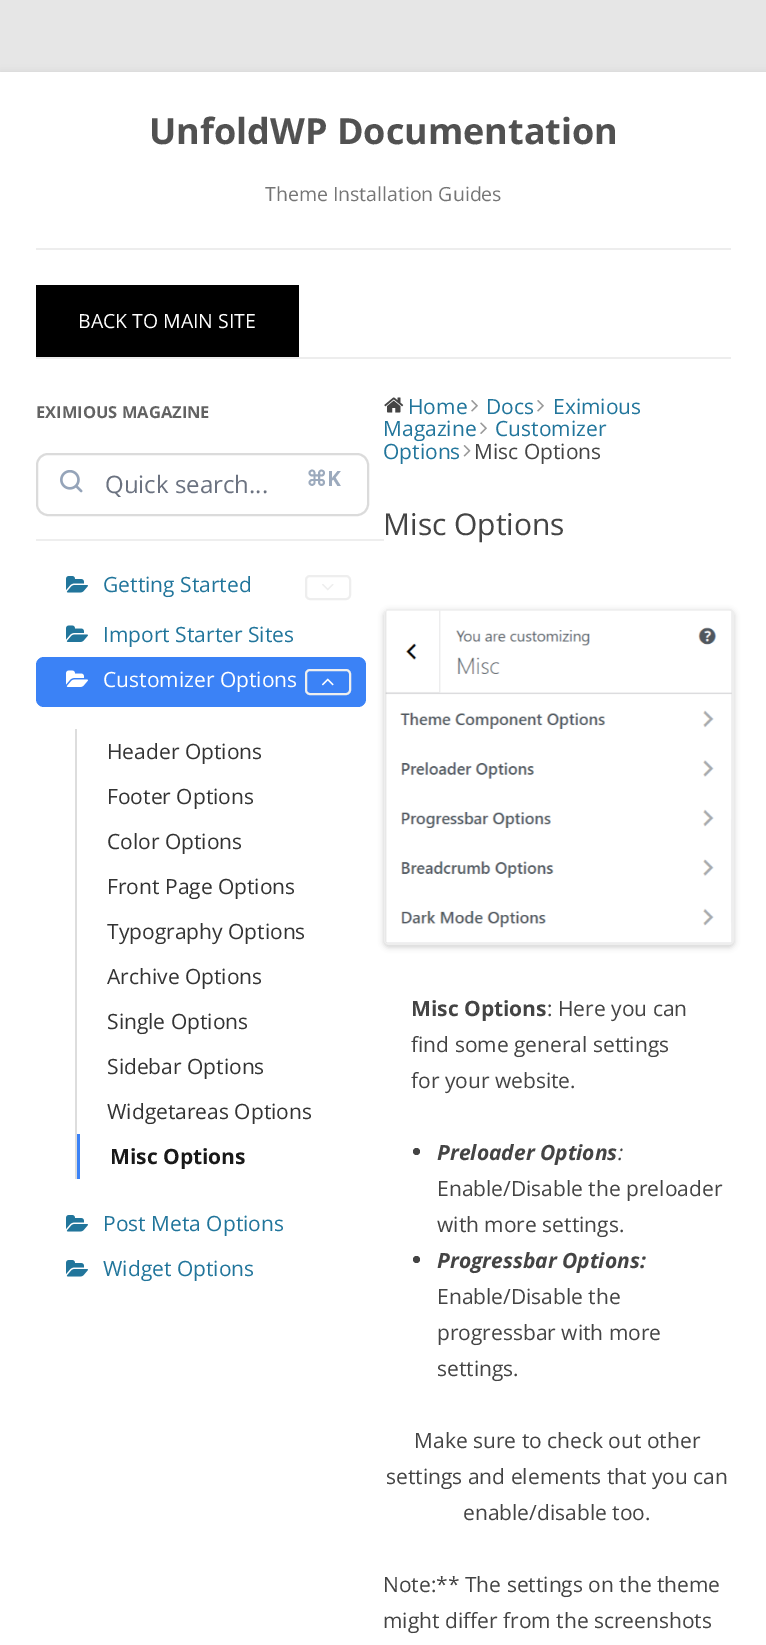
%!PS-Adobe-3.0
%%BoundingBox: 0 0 766 1645
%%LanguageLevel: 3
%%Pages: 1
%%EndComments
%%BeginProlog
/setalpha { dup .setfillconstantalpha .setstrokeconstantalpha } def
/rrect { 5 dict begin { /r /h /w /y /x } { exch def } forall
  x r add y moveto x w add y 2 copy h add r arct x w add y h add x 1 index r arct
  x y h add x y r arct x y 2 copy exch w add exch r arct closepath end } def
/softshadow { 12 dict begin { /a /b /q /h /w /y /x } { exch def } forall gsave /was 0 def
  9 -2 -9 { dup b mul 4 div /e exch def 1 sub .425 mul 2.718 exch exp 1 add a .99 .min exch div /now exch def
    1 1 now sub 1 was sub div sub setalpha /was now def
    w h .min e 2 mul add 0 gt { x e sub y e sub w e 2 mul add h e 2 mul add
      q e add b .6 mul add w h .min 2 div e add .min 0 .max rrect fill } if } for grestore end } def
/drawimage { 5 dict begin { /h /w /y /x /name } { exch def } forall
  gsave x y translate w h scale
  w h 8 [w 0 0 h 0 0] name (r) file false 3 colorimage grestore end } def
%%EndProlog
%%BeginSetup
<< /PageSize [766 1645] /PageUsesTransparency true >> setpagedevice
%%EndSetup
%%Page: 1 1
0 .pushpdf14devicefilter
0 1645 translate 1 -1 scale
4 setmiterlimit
0.902 setgray
0 0 766 1645 rectfill
0.392 setgray
0 75 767 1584 0 4.5 0.3 softshadow
1 setgray
0 72 766 1573 rectfill
0.929 setgray
36 248 695 2 rectfill
36 357 695 2 rectfill
0 setgray
36 285 263 72 rectfill
0.933 setgray
36 539 348 2 rectfill
0.859 setgray
2 setlinewidth
37 454 331 61 11 rrect stroke
(images/1.raw) 60 470 23 23 drawimage
(images/2.raw) 66 576 22 17 drawimage
0.933 setgray
306 576 44 23 4 rrect stroke
(images/3.raw) 322 584 12 7 drawimage
(images/4.raw) 66 625 22 17 drawimage
0.231 0.51 0.965 setrgbcolor
36 657 330 50 8 rrect fill
(images/5.raw) 66 670 22 17 drawimage
0.933 setgray
306 670 44 24 4 rrect stroke
(images/6.raw) 321 678 13 8 drawimage
0.867 setgray
75 729 2 450 rectfill
0.231 0.51 0.965 setrgbcolor
77 1134 3 45 rectfill
(images/2.raw) 66 1215 22 17 drawimage
(images/2.raw) 66 1260 22 17 drawimage
(images/7.raw) 384 397 20 16 drawimage
(images/8.raw) 471 400 7 12 drawimage
(images/8.raw) 537 400 7 12 drawimage
(images/9.raw) 480 422 7 12 drawimage
(images/10.raw) 463 445 8 12 drawimage
0 setgray
384 611 350 336 5 3 0.2 softshadow
0.933 setgray
385 610 348 334 4 rrect stroke
(images/11.raw) 385 610 347 333 drawimage
0.267 setgray
newpath 416.5 1151.5 3.5 0 360 arc closepath fill
newpath 416.5 1259.5 3.5 0 360 arc closepath fill
/OpenSans-Bold [36 0 0 -36 0 0] selectfont
0.318 setgray
149 144 moveto (UnfoldWP Documentation) show
/OpenSans-Regular [19.5 0 0 -19.5 0 0] selectfont
0.459 setgray
265 201 moveto (Theme Installation Guides) show
1 setgray
78 328 moveto (BACK TO MAIN SITE) show
/OpenSans-Bold [16.5 0 0 -16.5 0 0] selectfont
0.388 setgray
36 418 moveto (EXIMIOUS MAGAZINE) show
/OpenSans-Regular [24 0 0 -24 0 0] selectfont
0.42 0.447 0.502 setrgbcolor
105 493 moveto (Quick search...) show
/DejaVuSans-Bold [21 0 0 -21 0 0] selectfont
0.612 0.667 0.741 setrgbcolor
306 486 moveto (⌘) show
/OpenSans-Bold [21 0 0 -21 0 0] selectfont
327 486 moveto (K) show
/OpenSans-Regular [21 0 0 -21 0 0] selectfont
0.129 0.459 0.608 setrgbcolor
103 592 moveto (Getting Started) show
103 642 moveto (Import Starter Sites) show
1 setgray
103 687 moveto (Customizer Options) show
0.2 setgray
107 759 moveto (Header Options) show
107 804 moveto (Footer Options) show
107 849 moveto (Color Options) show
107 894 moveto (Front Page Options) show
107 939 moveto (Typography Options) show
107 984 moveto (Archive Options) show
107 1029 moveto (Single Options) show
107 1074 moveto (Sidebar Options) show
107 1119 moveto (Widgetareas Options) show
/OpenSans-Bold [21 0 0 -21 0 0] selectfont
0.098 setgray
110 1164 moveto (Misc Options) show
/OpenSans-Regular [21 0 0 -21 0 0] selectfont
0.129 0.459 0.608 setrgbcolor
103 1231 moveto (Post Meta Options) show
103 1276 moveto (Widget Options) show
408 414 moveto (Home) show
486 414 moveto (Docs) show
553 414 moveto (Eximious) show
383 436 moveto (Magazine) show
495 436 moveto (Customizer) show
383 459 moveto (Options) show
0.267 setgray
474 459 moveto (Misc Options) show
/OpenSans-Regular [30 0 0 -30 0 0] selectfont
383 535 moveto (Misc Options) show
/OpenSans-Bold [21 0 0 -21 0 0] selectfont
411 1016 moveto (Misc Options) show
/OpenSans-Regular [21 0 0 -21 0 0] selectfont
547 1016 moveto (: Here you can) show
411 1052 moveto (find some general settings) show
411 1088 moveto (for your website.) show
/OpenSans-BoldItalic [21 0 0 -21 0 0] selectfont
437 1160 moveto (Preloader Options) show
/OpenSans-Italic [21 0 0 -21 0 0] selectfont
618 1160 moveto (:) show
/OpenSans-Regular [21 0 0 -21 0 0] selectfont
437 1196 moveto (Enable/Disable the preloader) show
437 1232 moveto (with more settings.) show
/OpenSans-BoldItalic [21 0 0 -21 0 0] selectfont
437 1268 moveto (Progressbar Options:) show
/OpenSans-Regular [21 0 0 -21 0 0] selectfont
437 1304 moveto (Enable/Disable the) show
437 1340 moveto (progressbar with more) show
437 1376 moveto (settings.) show
414 1448 moveto (Make sure to check out other) show
386 1484 moveto (settings and elements that you can) show
463 1520 moveto (enable/disable too.) show
383 1592 moveto (Note:** The settings on the theme) show
383 1628 moveto (might differ from the screenshots) show
.poppdf14devicefilter showpage
%%EOF
